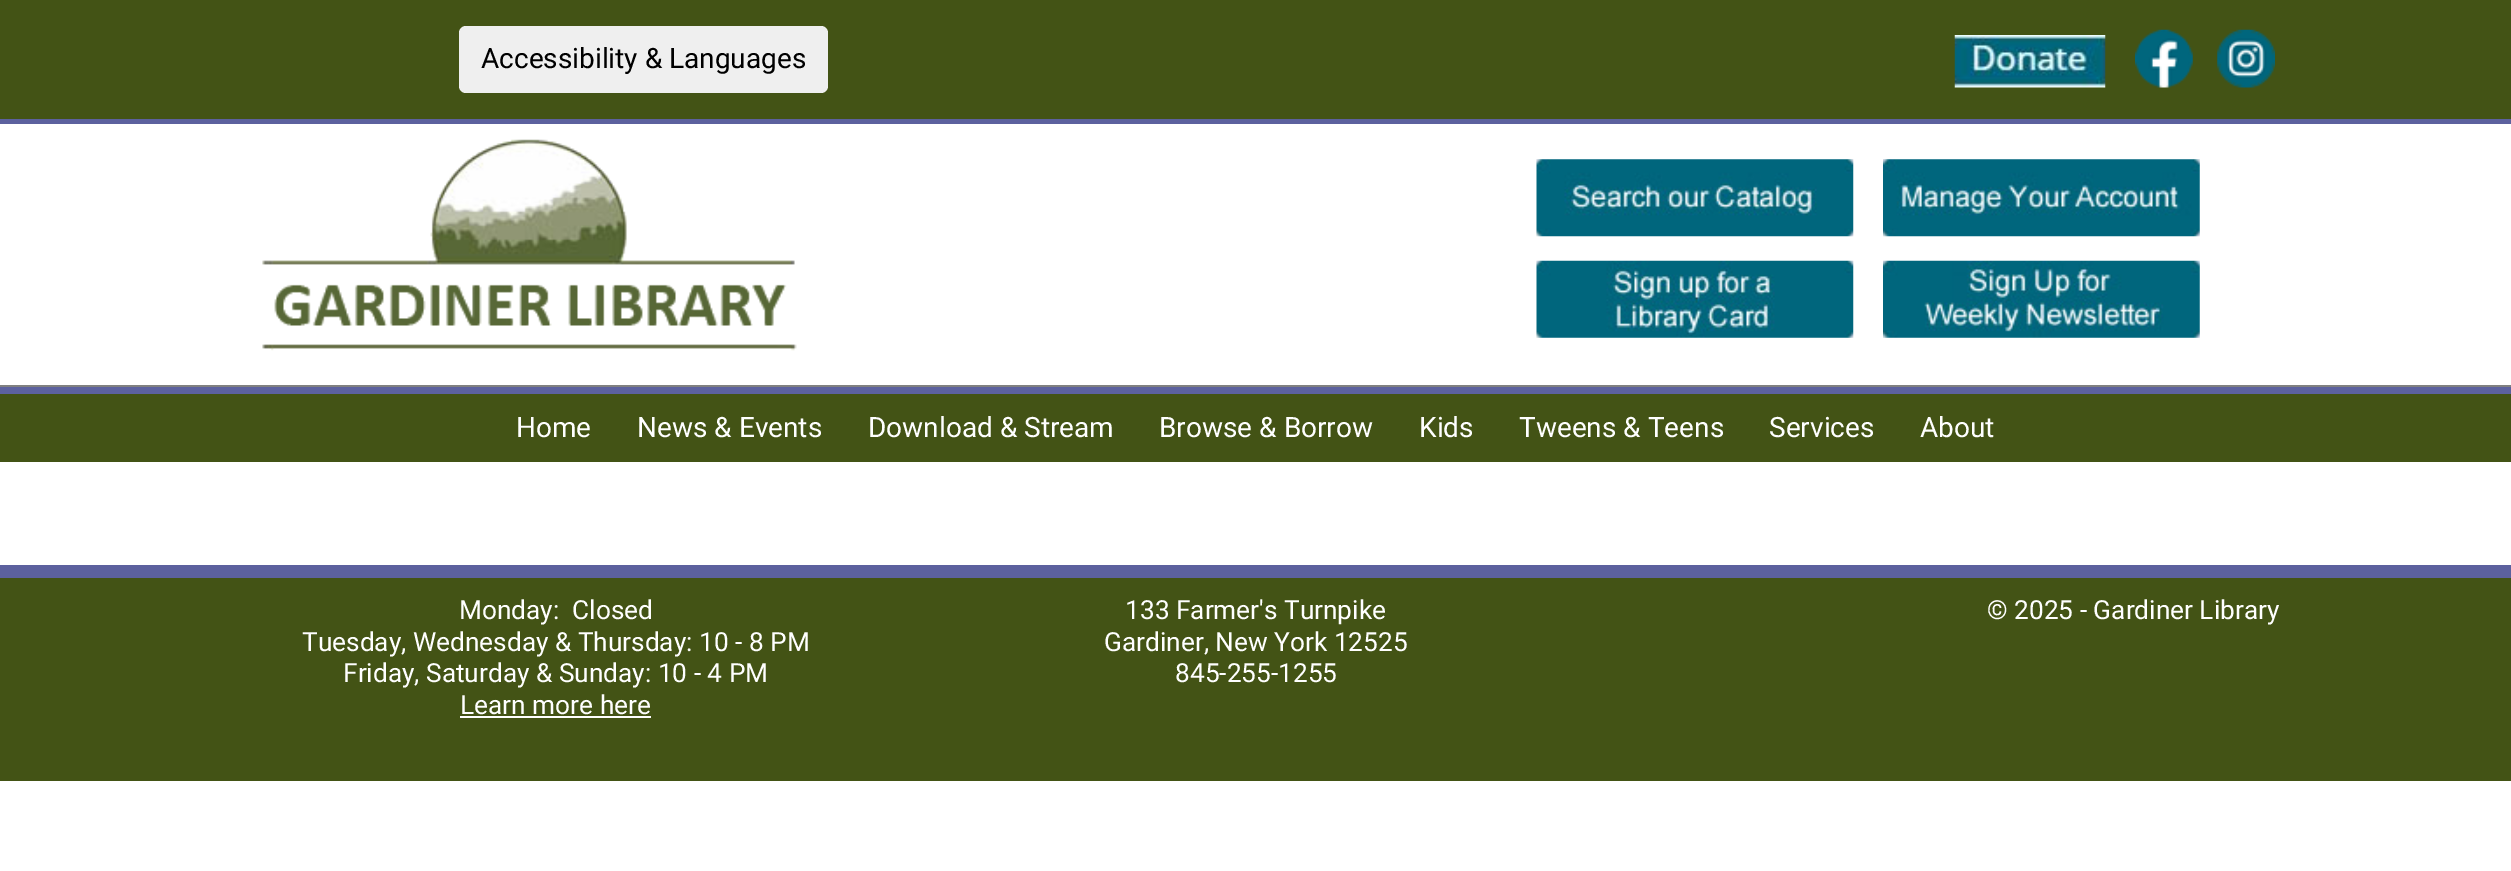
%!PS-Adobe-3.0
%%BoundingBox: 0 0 2511 871
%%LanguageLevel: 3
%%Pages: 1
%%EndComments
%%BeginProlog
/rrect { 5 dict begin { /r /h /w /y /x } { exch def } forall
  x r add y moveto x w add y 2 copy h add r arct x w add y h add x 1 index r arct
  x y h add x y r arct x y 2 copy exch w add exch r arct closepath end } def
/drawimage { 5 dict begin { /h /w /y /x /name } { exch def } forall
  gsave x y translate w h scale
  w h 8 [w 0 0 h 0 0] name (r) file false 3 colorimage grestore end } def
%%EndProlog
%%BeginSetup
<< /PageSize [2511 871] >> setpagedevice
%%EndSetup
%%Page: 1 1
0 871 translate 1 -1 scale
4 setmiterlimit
1 setgray
0 0 2511 871 rectfill
0.263 0.325 0.082 setrgbcolor
0 0 2511 119 rectfill
0.361 0.38 0.62 setrgbcolor
0 119 2511 5 rectfill
0.937 setgray
459 26 369 67 7 rrect fill
(images/1.raw) 1954 35 152 53 drawimage
(images/2.raw) 2135 29 58 59 drawimage
(images/3.raw) 2217 29 58 59 drawimage
0.502 setgray
0 385 2511 2 rectfill
(images/4.raw) 262 139 535 212 drawimage
(images/5.raw) 1536 159 318 78 drawimage
(images/6.raw) 1883 159 317 78 drawimage
(images/7.raw) 1536 260 318 78 drawimage
(images/8.raw) 1883 260 317 78 drawimage
0.263 0.325 0.082 setrgbcolor
0 394 2511 68 rectfill
0.361 0.38 0.62 setrgbcolor
0 387 2511 7 rectfill
0.263 0.325 0.082 setrgbcolor
0 578 2511 203 rectfill
0.361 0.38 0.62 setrgbcolor
0 565 2511 13 rectfill
1 setgray
460 716 191 2 rectfill
/Roboto-Regular [28 0 0 -28 0 0] selectfont
0 setgray
481 68 moveto (Accessibility & Languages) show
1 setgray
516 437 moveto (Home) show
637 437 moveto (News & Events) show
868 437 moveto (Download & Stream) show
1159 437 moveto (Browse & Borrow) show
1419 437 moveto (Kids) show
1519 437 moveto (Tweens & Teens) show
1769 437 moveto (Services) show
1920 437 moveto (About) show
/Roboto-Regular [26.25 0 0 -26.25 0 0] selectfont
459 619 moveto (Monday:  Closed) show
302 651 moveto (Tuesday, Wednesday & Thursday: 10 - 8 PM) show
343 682 moveto (Friday, Saturday & Sunday: 10 - 4 PM) show
460 714 moveto (Learn more here) show
1125 619 moveto (133 Farmer's Turnpike) show
1104 651 moveto (Gardiner, New York 12525) show
1175 682 moveto (845-255-1255) show
1987 619 moveto (© 2025 - Gardiner Library) show
showpage
%%EOF
